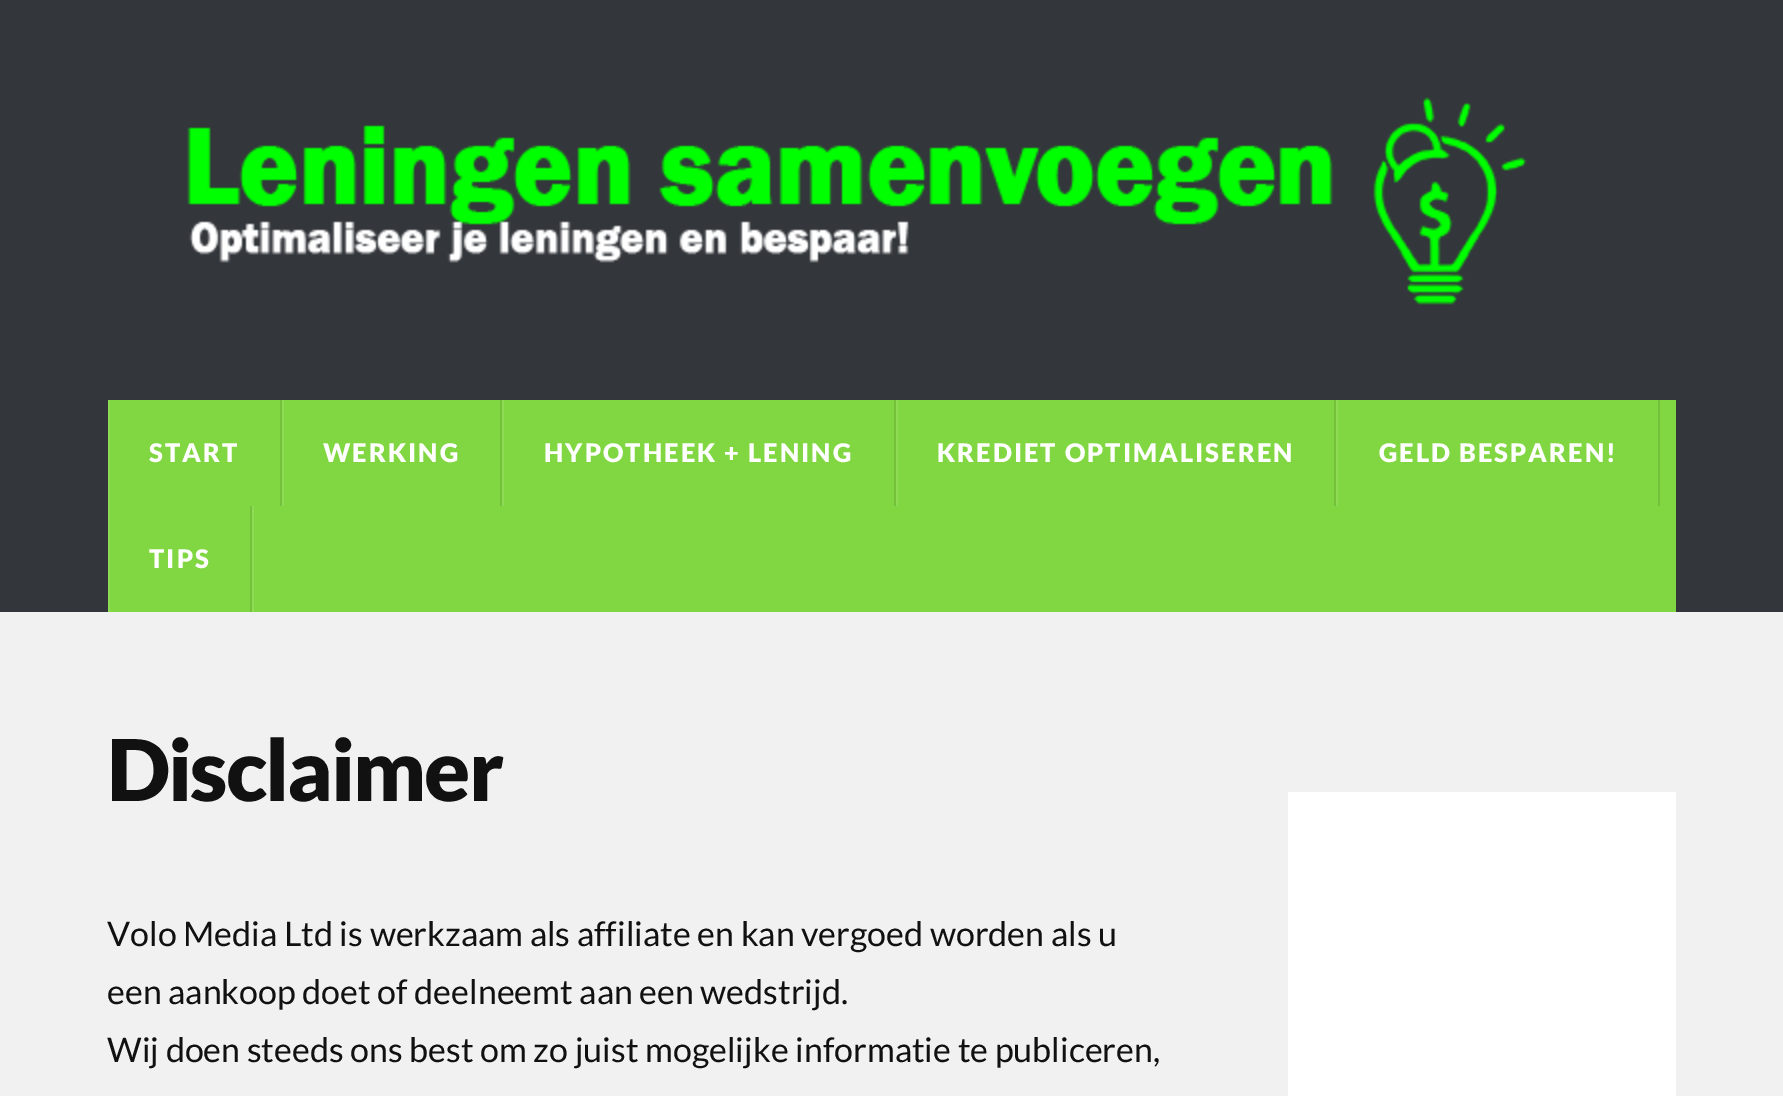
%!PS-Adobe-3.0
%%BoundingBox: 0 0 1783 1096
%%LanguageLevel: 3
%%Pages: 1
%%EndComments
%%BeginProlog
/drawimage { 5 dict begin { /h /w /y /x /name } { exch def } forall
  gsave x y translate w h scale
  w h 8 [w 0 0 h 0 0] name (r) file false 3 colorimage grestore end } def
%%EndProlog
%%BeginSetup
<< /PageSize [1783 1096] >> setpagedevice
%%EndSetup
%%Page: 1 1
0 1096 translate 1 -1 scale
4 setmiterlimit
0.945 setgray
0 0 1783 1096 rectfill
0.2 0.212 0.231 setrgbcolor
0 0 1783 612 rectfill
(images/1.raw) 187 97 1340 208 drawimage
0.506 0.843 0.259 setrgbcolor
110 400 1566 212 rectfill
0.455 0.761 0.231 setrgbcolor
280 400 2 106 rectfill
0.557 0.859 0.333 setrgbcolor
108 400 2 212 rectfill
0.455 0.761 0.231 setrgbcolor
500 400 2 106 rectfill
0.557 0.859 0.333 setrgbcolor
282 400 2 106 rectfill
0.455 0.761 0.231 setrgbcolor
894 400 2 106 rectfill
0.557 0.859 0.333 setrgbcolor
502 400 2 106 rectfill
0.455 0.761 0.231 setrgbcolor
1334 400 2 106 rectfill
0.557 0.859 0.333 setrgbcolor
896 400 2 106 rectfill
0.455 0.761 0.231 setrgbcolor
1658 400 2 106 rectfill
0.557 0.859 0.333 setrgbcolor
1336 400 2 106 rectfill
0.455 0.761 0.231 setrgbcolor
250 506 2 106 rectfill
0.557 0.859 0.333 setrgbcolor
252 506 2 106 rectfill
1 setgray
1288 792 388 304 rectfill
/Lato-Black [25.6 0 0 -25.6 0 0] selectfont
149 462 moveto 2 0 (START) ashow
323 462 moveto 2 0 (WERKING) ashow
544 462 moveto 2 0 (HYPOTHEEK + LENING) ashow
937 462 moveto 2 0 (KREDIET OPTIMALISEREN) ashow
1379 462 moveto 2 0 (GELD BESPAREN!) ashow
149 568 moveto 2 0 (TIPS) ashow
/Lato-Black [85 0 0 -85 0 0] selectfont
0.067 setgray
107 801 moveto -2 0 (Disclaimer) ashow
/Lato-Regular [34 0 0 -34 0 0] selectfont
107 946 moveto (Volo Media Ltd is werkzaam als affiliate en kan vergoed worden als u) show
107 1004 moveto (een aankoop doet of deelneemt aan een wedstrijd.) show
107 1062 moveto (Wij doen steeds ons best om zo juist mogelijke informatie te publiceren,) show
showpage
%%EOF
